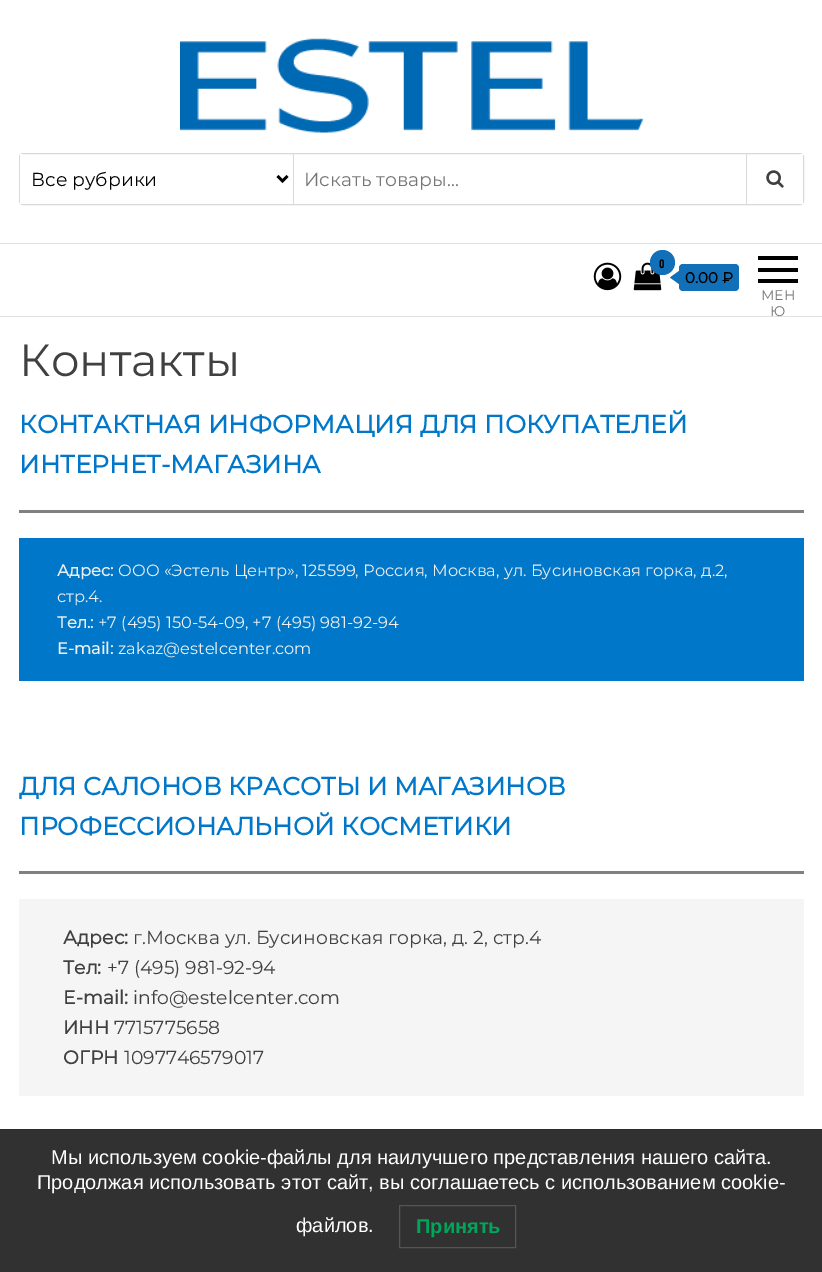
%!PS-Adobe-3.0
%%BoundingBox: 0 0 822 1272
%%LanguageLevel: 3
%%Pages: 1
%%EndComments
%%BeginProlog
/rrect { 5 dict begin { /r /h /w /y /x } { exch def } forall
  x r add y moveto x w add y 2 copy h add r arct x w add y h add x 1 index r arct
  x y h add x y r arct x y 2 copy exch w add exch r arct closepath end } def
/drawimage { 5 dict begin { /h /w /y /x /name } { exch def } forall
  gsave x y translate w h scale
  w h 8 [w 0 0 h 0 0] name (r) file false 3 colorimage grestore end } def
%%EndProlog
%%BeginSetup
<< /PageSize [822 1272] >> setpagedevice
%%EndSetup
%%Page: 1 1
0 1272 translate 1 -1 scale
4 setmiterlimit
1 setgray
0 0 822 1272 rectfill
0.192 setgray
0 1130 822 142 rectfill
(images/1.raw) 180 38 464 95 drawimage
0.851 setgray
19.5 153.5 784 51 3.5 rrect stroke
1 setgray
20 154 3 50 rectfill
0.851 setgray
293 154 1 50 rectfill
0 setgray
2.5 setlinewidth
newpath 277.5 176 moveto 282.5 181 lineto 287.5 176 lineto stroke
1 setgray
800 154 3 50 rectfill
0.851 setgray
746 154 1 50 rectfill
(images/2.raw) 766 170 18 18 drawimage
0.886 setgray
0 243 822 1 rectfill
0 316 822 1 rectfill
(images/3.raw) 593 262 29 29 drawimage
(images/4.raw) 633 262 29 29 drawimage
0.067 0.439 0.718 setrgbcolor
newpath 662.5 262.5 12.5 0 360 arc closepath fill
679 264 60 27 4 rrect fill
newpath 679 271 moveto 679 284 lineto 670 277.5 lineto closepath fill
0 setgray
758 256 40 4 rectfill
758 268 40 4 rectfill
758 279 40 4 rectfill
0.502 setgray
19 510 785 3 rectfill
0 0.467 0.784 setrgbcolor
19 538 785 143 rectfill
0.502 setgray
19 871 785 3 rectfill
0.961 setgray
19 899 785 197 rectfill
0.169 setgray
0 1129 822 1 rectfill
0.333 setgray
1 setlinewidth
399.5 1205.5 116 42 rectstroke
/Montserrat-Thin [18.75 0 0 -18.75 0 0] selectfont
0 setgray
31 186 moveto (Все рубрики) show
0.459 setgray
304 186 moveto (Искать товары...) show
/OpenSansCondensed-Bold [12 0 0 -12 0 0] selectfont
0 setgray
659 268 moveto (0) show
/Montserrat-Bold [15 0 0 -15 0 0] selectfont
685 283 moveto (0.00 ₽) show
/Montserrat-Thin [14 0 0 -14 0 0] selectfont
0.459 setgray
761 300 moveto (МЕН) show
770 316 moveto (Ю) show
/Montserrat-Thin [45 0 0 -45 0 0] selectfont
0.251 setgray
19 376 moveto (Контакты) show
/Montserrat-Bold [25 0 0 -25 0 0] selectfont
0 0.467 0.784 setrgbcolor
19 433 moveto (КОНТАКТНАЯ ИНФОРМАЦИЯ ДЛЯ ПОКУПАТЕЛЕЙ) show
19 473 moveto (ИНТЕРНЕТ-МАГАЗИНА) show
/Montserrat-Bold [16.25 0 0 -16.25 0 0] selectfont
0.933 setgray
57 576 moveto (Адрес:) show
/Montserrat-Thin [16.25 0 0 -16.25 0 0] selectfont
118 576 moveto (ООО «Эстель Центр», 125599, Россия, Москва, ул. Бусиновская горка, д.2,) show
57 602 moveto (стр.4.) show
/Montserrat-Bold [16.25 0 0 -16.25 0 0] selectfont
57 628 moveto (Тел.:) show
/Montserrat-Thin [16.25 0 0 -16.25 0 0] selectfont
98 628 moveto (+7 \(495\) 150-54-09, +7 \(495\) 981-92-94) show
/Montserrat-Bold [16.25 0 0 -16.25 0 0] selectfont
57 654 moveto (E-mail:) show
/Montserrat-Thin [16.25 0 0 -16.25 0 0] selectfont
118 654 moveto (zakaz@estelcenter.com) show
/Montserrat-Bold [25 0 0 -25 0 0] selectfont
0 0.467 0.784 setrgbcolor
19 795 moveto (ДЛЯ САЛОНОВ КРАСОТЫ И МАГАЗИНОВ) show
19 835 moveto (ПРОФЕССИОНАЛЬНОЙ КОСМЕТИКИ) show
/Montserrat-Bold [18.75 0 0 -18.75 0 0] selectfont
0.251 setgray
63 944 moveto (Адрес:) show
/Montserrat-Thin [18.75 0 0 -18.75 0 0] selectfont
133 944 moveto (г.Москва ул. Бусиновская горка, д. 2, стр.4) show
/Montserrat-Bold [18.75 0 0 -18.75 0 0] selectfont
63 974 moveto (Тел:) show
/Montserrat-Thin [18.75 0 0 -18.75 0 0] selectfont
107 974 moveto (+7 \(495\) 981-92-94) show
/Montserrat-Bold [18.75 0 0 -18.75 0 0] selectfont
63 1004 moveto (E-mail:) show
/Montserrat-Thin [18.75 0 0 -18.75 0 0] selectfont
133 1004 moveto (info@estelcenter.com) show
/Montserrat-Bold [18.75 0 0 -18.75 0 0] selectfont
63 1034 moveto (ИНН) show
/Montserrat-Thin [18.75 0 0 -18.75 0 0] selectfont
114 1034 moveto (7715775658) show
/Montserrat-Bold [18.75 0 0 -18.75 0 0] selectfont
63 1064 moveto (ОГРН) show
/Montserrat-Thin [18.75 0 0 -18.75 0 0] selectfont
124 1064 moveto (1097746579017) show
/LiberationSans-Regular [20 0 0 -20 0 0] selectfont
1 setgray
51 1164 moveto (Мы используем cookie-файлы для наилучшего представления нашего сайта.) show
37 1189 moveto (Продолжая использовать этот сайт, вы соглашаетесь с использованием cookie-) show
296 1232 moveto (файлов.) show
/LiberationSans-Bold [20 0 0 -20 0 0] selectfont
0 0.651 0.353 setrgbcolor
416 1233 moveto (Принять) show
showpage
%%EOF
